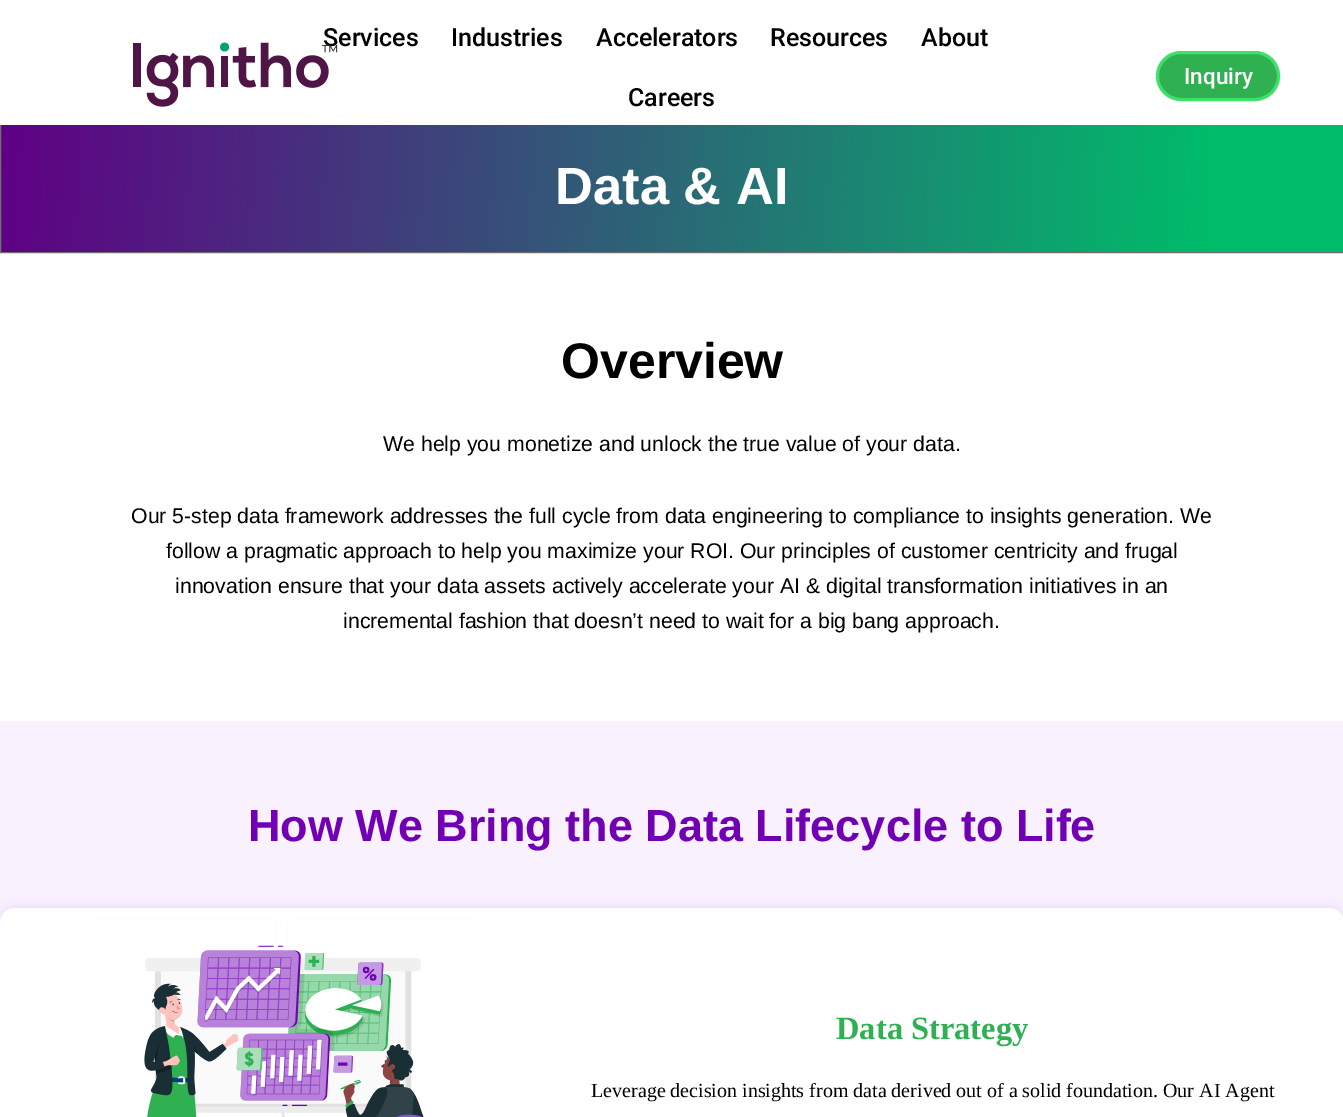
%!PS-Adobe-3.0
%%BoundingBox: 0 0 1343 1117
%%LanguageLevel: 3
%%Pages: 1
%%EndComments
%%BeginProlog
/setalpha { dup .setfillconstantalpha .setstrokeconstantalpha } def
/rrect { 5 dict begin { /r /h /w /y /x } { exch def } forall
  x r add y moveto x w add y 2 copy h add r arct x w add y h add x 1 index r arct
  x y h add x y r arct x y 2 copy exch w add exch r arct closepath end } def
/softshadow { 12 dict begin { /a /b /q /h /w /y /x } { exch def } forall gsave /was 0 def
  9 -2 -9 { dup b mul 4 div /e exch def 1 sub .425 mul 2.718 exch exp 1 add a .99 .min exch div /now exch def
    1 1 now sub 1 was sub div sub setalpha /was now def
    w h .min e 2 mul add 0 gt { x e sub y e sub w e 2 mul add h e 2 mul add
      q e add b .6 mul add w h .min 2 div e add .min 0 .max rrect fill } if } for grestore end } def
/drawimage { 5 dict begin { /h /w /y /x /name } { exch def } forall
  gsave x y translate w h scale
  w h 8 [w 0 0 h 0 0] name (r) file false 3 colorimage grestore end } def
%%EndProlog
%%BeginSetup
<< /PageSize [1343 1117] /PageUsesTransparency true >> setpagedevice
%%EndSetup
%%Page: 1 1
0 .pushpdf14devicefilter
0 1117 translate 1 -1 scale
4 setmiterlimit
1 setgray
0 0 1343 1117 rectfill
gsave newpath 1 125 moveto 1343 125 lineto 1343 251 lineto 1 251 lineto closepath clip newpath
<< /ShadingType 2 /ColorSpace /DeviceRGB /Coords [-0.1 139 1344 233] /Extend [true true] /Function << /FunctionType 3 /Domain [0 1] /Functions [<< /FunctionType 2 /Domain [0 1] /C0 [0.376 0 0.522] /C1 [0 0.737 0.416] /N 1 >> << /FunctionType 2 /Domain [0 1] /C0 [0 0.737 0.416] /C1 [0 0.737 0.416] /N 1 >>] /Bounds [0.9] /Encode [0 1 0 1] >> >> shfill grestore
gsave newpath 1 251 moveto 1343 251 lineto 1343 252 lineto 1 252 lineto closepath clip newpath
<< /ShadingType 2 /ColorSpace /DeviceRGB /Coords [-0.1 270 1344 364] /Extend [true true] /Function << /FunctionType 3 /Domain [0 1] /Functions [<< /FunctionType 2 /Domain [0 1] /C0 [0.376 0 0.522] /C1 [0 0.737 0.416] /N 1 >> << /FunctionType 2 /Domain [0 1] /C0 [0 0.737 0.416] /C1 [0 0.737 0.416] /N 1 >>] /Bounds [0.9] /Encode [0 1 0 1] >> >> shfill grestore
0.439 setgray
0.5 119.5 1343 133 rectstroke
1 setgray
0 119 1343 6 rectfill
0.184 0.694 0.322 setrgbcolor
1157.5 52.5 121 47 23.5 rrect gsave fill grestore
0.239 0.882 0.412 setrgbcolor
3 setlinewidth
stroke
0.976 0.945 0.996 setrgbcolor
0 721 1343 202 rectfill
0.89 0.824 1 setrgbcolor
0 908 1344 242 15 6 1 softshadow
1 setgray
0 908 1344 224 15 rrect fill
(images/2.raw) 89 918 385 199 drawimage
/Roboto-Medium [25 0 0 -25 0 0] selectfont
0 setgray
323 46 moveto (Services) show
(images/1.raw) 133 42 205 65 drawimage
451 46 moveto (Industries) show
596 46 moveto (Accelerators) show
770 46 moveto (Resources) show
921 46 moveto (About) show
628 106 moveto (Careers) show
/Roboto-Medium [22.5 0 0 -22.5 0 0] selectfont
1 setgray
1184 84 moveto (Inquiry) show
/LiberationSans-Bold [52.5 0 0 -52.5 0 0] selectfont
555 204 moveto (Data & AI) show
/LiberationSans-Bold [50 0 0 -50 0 0] selectfont
0 setgray
561 378 moveto (Overview) show
/LiberationSans-Regular [21.25 0 0 -21.25 0 0] selectfont
383 451 moveto (We help you monetize and unlock the true value of your data.) show
131 523 moveto (Our 5-step data framework addresses the full cycle from data engineering to compliance to insights generation. We) show
166 558 moveto (follow a pragmatic approach to help you maximize your ROI. Our principles of customer centricity and frugal) show
175 593 moveto (innovation ensure that your data assets actively accelerate your AI & digital transformation initiatives in an) show
343 628 moveto (incremental fashion that doesn’t need to wait for a big bang approach.) show
/LiberationSans-Bold [45 0 0 -45 0 0] selectfont
0.443 0 0.71 setrgbcolor
248 841 moveto (How We Bring the Data Lifecycle to Life) show
/LiberationSerif-Bold [32.5 0 0 -32.5 0 0] selectfont
0.184 0.694 0.322 setrgbcolor
836 1039 moveto (Data Strategy) show
/LiberationSerif-Regular [20 0 0 -20 0 0] selectfont
0 setgray
591 1097 moveto (Leverage decision insights from data derived out of a solid foundation. Our AI Agent) show
.poppdf14devicefilter showpage
%%EOF
